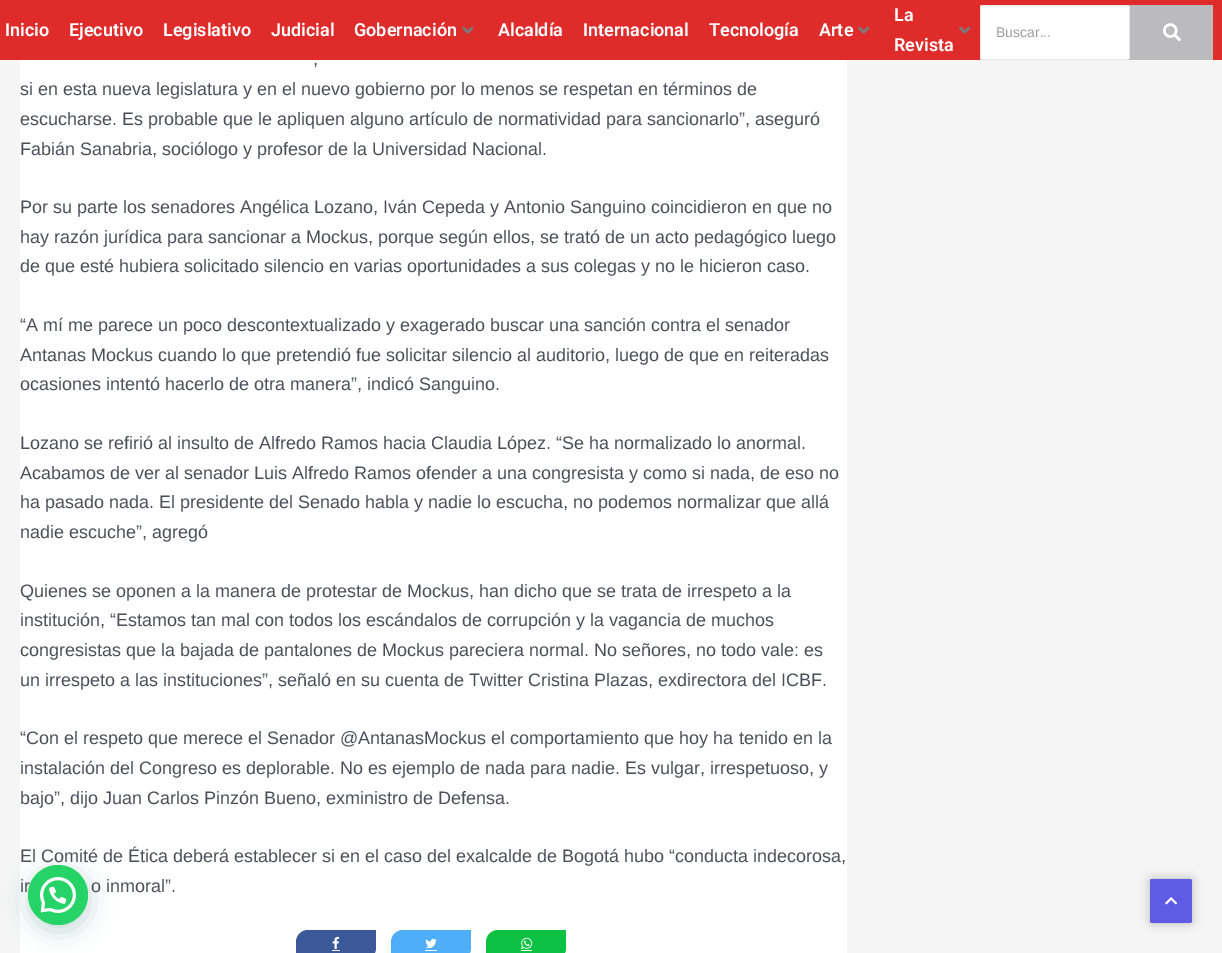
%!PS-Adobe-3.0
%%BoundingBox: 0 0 1222 953
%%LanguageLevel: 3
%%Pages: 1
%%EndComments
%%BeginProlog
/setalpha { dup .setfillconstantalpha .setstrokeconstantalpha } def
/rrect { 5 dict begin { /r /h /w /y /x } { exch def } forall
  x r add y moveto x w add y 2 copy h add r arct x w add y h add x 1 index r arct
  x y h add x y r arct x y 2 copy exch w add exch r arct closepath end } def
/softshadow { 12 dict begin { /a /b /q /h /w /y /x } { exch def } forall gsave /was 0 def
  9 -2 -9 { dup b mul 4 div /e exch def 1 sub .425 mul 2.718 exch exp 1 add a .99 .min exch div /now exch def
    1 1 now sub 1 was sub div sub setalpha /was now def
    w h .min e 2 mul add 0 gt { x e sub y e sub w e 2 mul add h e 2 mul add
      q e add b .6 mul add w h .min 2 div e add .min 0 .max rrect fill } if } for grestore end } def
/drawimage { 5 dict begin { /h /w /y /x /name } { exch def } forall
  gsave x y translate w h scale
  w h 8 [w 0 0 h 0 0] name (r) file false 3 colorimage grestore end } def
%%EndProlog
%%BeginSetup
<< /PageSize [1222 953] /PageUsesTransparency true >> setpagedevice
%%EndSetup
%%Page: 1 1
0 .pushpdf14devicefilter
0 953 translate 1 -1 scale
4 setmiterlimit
0.961 setgray
0 0 1222 953 rectfill
0.878 0.169 0.169 setrgbcolor
0 0 1222 60 rectfill
(images/1.raw) 462 26 12 8 drawimage
(images/1.raw) 858 26 12 8 drawimage
(images/1.raw) 959 26 12 8 drawimage
1 setgray
980.5 5.5 149 54 1.5 rrect gsave fill grestore
0.91 setgray
stroke
0.733 0.733 0.741 setrgbcolor
1130 5 83 55 rectfill
(images/2.raw) 1163 23 18 19 drawimage
1 setgray
20 60 827 893 rectfill
0.231 0.349 0.596 setrgbcolor
newpath 308 930 moveto 376 930 lineto 376 948 lineto 376 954.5 370.5 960 364 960 curveto 296 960 lineto 296 942 lineto 296 935.5 301.5 930 308 930 curveto closepath fill
(images/3.raw) 332 936 7 13 drawimage
1 setgray
332 950 8 1 rectfill
0.306 0.682 0.973 setrgbcolor
newpath 403 930 moveto 471 930 lineto 471 948 lineto 471 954.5 465.5 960 459 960 curveto 391 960 lineto 391 942 lineto 391 935.5 396.5 930 403 930 curveto closepath fill
(images/4.raw) 425 938 12 11 drawimage
1 setgray
425 950 12 1 rectfill
0.051 0.757 0.263 setrgbcolor
newpath 498 930 moveto 566 930 lineto 566 948 lineto 566 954.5 560.5 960 554 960 curveto 486 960 lineto 486 942 lineto 486 935.5 491.5 930 498 930 curveto closepath fill
(images/5.raw) 521 937 12 12 drawimage
1 setgray
521 950 11 1 rectfill
0 setgray
1150 879 42 44 2 5 0.25 softshadow
0.376 0.357 0.898 setrgbcolor
1150 879 42 44 2 rrect fill
(images/6.raw) 1165 897 12 8 drawimage
0.027 0.369 0.329 setrgbcolor
29 871 60 60 30 12 0.24 softshadow
/Roboto-SemiBold [18 0 0 -18 0 0] selectfont
1 setgray
5 36 moveto (Inicio) show
69 36 moveto (Ejecutivo) show
163 36 moveto (Legislativo) show
271 36 moveto (Judicial) show
354 36 moveto (Gobernación) show
498 36 moveto (Alcaldía) show
583 36 moveto (Internacional) show
709 36 moveto (Tecnología) show
819 36 moveto (Arte) show
894 21 moveto (La) show
894 51 moveto (Revista) show
/LiberationSans-Regular [14 0 0 -14 0 0] selectfont
0.62 setgray
996 37 moveto (Buscar...) show
/LiberationSans-Regular [18 0 0 -18 0 0] selectfont
0.294 0.31 0.345 setrgbcolor
313 65 moveto (,) show
20 95 moveto (si en esta nueva legislatura y en el nuevo gobierno por lo menos se respetan en términos de) show
20 125 moveto (escucharse. Es probable que le apliquen alguno artículo de normatividad para sancionarlo”, aseguró) show
20 155 moveto (Fabián Sanabria, sociólogo y profesor de la Universidad Nacional.) show
20 213 moveto (Por su parte los senadores Angélica Lozano, Iván Cepeda y Antonio Sanguino coincidieron en que no) show
20 243 moveto (hay razón jurídica para sancionar a Mockus, porque según ellos, se trató de un acto pedagógico luego) show
20 272 moveto (de que esté hubiera solicitado silencio en varias oportunidades a sus colegas y no le hicieron caso.) show
20 331 moveto (“A mí me parece un poco descontextualizado y exagerado buscar una sanción contra el senador) show
20 361 moveto (Antanas Mockus cuando lo que pretendió fue solicitar silencio al auditorio, luego de que en reiteradas) show
20 390 moveto (ocasiones intentó hacerlo de otra manera”, indicó Sanguino.) show
20 449 moveto (Lozano se refirió al insulto de Alfredo Ramos hacia Claudia López. “Se ha normalizado lo anormal.) show
20 479 moveto (Acabamos de ver al senador Luis Alfredo Ramos ofender a una congresista y como si nada, de eso no) show
20 508 moveto (ha pasado nada. El presidente del Senado habla y nadie lo escucha, no podemos normalizar que allá) show
20 538 moveto (nadie escuche”, agregó) show
20 597 moveto (Quienes se oponen a la manera de protestar de Mockus, han dicho que se trata de irrespeto a la) show
20 626 moveto (institución, “Estamos tan mal con todos los escándalos de corrupción y la vagancia de muchos) show
20 656 moveto (congresistas que la bajada de pantalones de Mockus pareciera normal. No señores, no todo vale: es) show
20 686 moveto (un irrespeto a las instituciones”, señaló en su cuenta de Twitter Cristina Plazas, exdirectora del ICBF.) show
20 744 moveto (“Con el respeto que merece el Senador @AntanasMockus el comportamiento que hoy ha tenido en la) show
20 774 moveto (instalación del Congreso es deplorable. No es ejemplo de nada para nadie. Es vulgar, irrespetuoso, y) show
20 804 moveto (bajo”, dijo Juan Carlos Pinzón Bueno, exministro de Defensa.) show
20 862 moveto (El Comité de Ética deberá establecer si en el caso del exalcalde de Bogotá hubo “conducta indecorosa,) show
20 892 moveto (ir) show
91 892 moveto (o inmoral”.) show
0.145 0.827 0.4 setrgbcolor
newpath 58 895 30 0 360 arc closepath fill
(images/7.raw) 40 877 36 36 drawimage
.poppdf14devicefilter showpage
%%EOF
